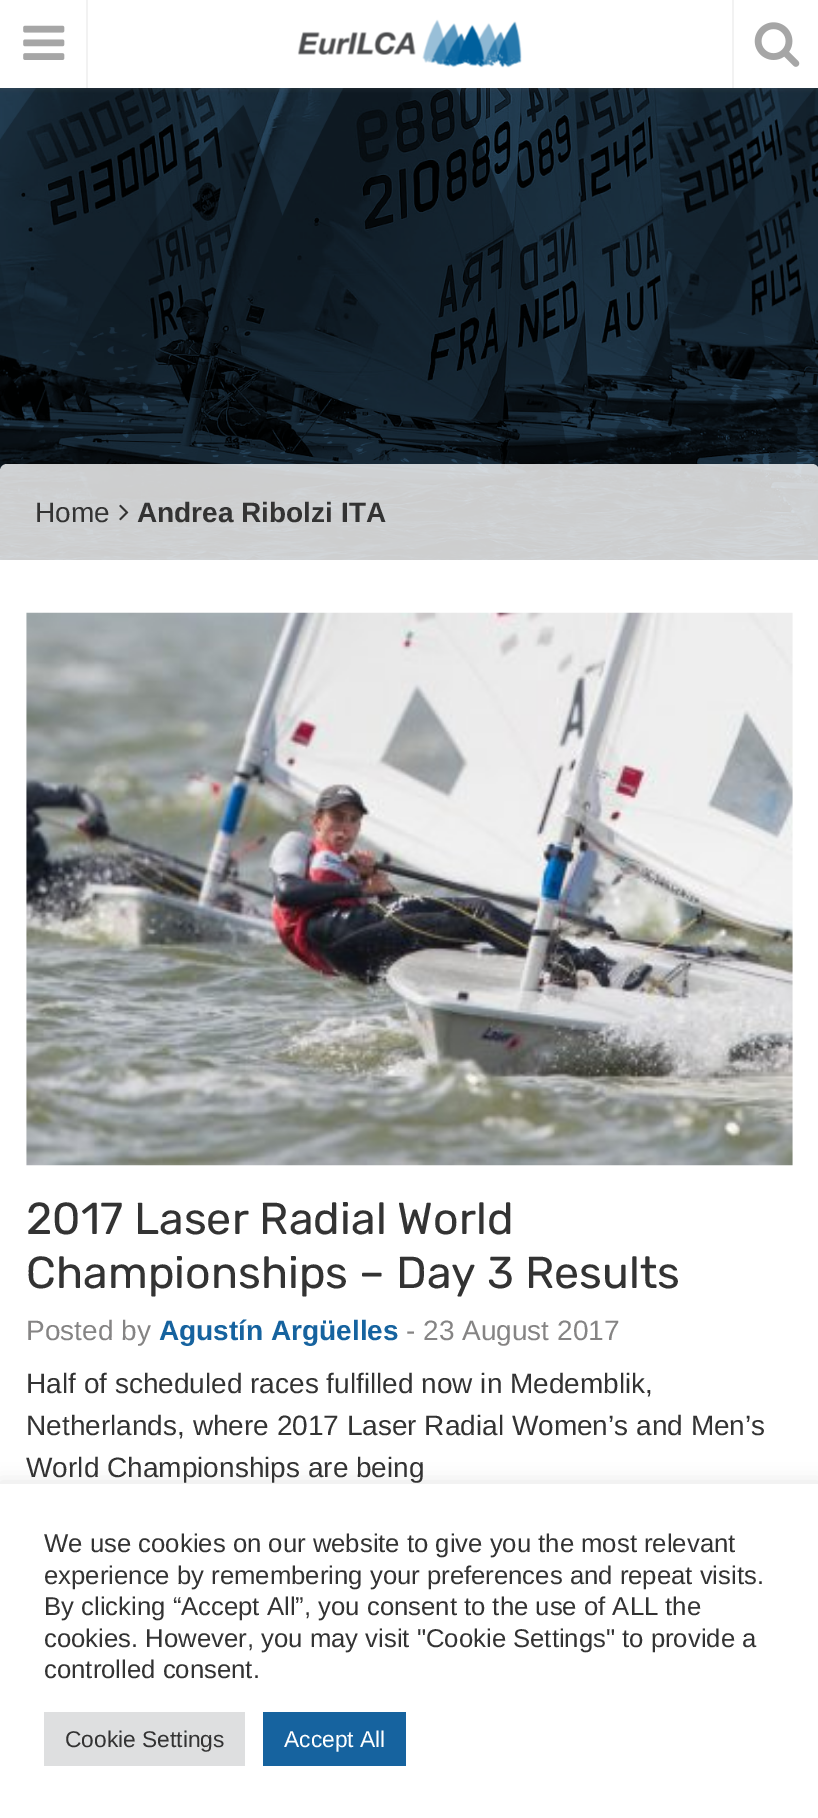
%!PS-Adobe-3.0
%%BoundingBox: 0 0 818 1818
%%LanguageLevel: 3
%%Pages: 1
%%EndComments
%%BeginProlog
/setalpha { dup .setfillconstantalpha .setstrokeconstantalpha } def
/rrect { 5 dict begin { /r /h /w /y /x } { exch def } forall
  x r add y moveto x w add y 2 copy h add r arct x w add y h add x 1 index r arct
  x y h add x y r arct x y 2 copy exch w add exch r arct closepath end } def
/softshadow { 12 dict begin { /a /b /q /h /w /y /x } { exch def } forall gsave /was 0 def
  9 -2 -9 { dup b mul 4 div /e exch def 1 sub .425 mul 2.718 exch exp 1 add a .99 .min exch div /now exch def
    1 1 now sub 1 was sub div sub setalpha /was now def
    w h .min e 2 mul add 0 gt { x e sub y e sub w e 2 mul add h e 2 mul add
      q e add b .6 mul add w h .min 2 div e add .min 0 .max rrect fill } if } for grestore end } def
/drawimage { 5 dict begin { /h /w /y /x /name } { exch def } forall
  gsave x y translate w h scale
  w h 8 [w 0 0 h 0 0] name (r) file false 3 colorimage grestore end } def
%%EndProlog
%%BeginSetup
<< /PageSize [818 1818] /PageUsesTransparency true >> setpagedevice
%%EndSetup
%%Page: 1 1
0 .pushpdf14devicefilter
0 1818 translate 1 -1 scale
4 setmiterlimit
1 setgray
0 0 818 1818 rectfill
(images/4.raw) 0 88 818 472 drawimage
0.424 setgray
0 2 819 87 0 2 0.2 softshadow
1 setgray
0 0 818 88 rectfill
0.949 setgray
86 0 2 88 rectfill
(images/1.raw) 23 25 42 35 drawimage
(images/2.raw) 297 19 225 49 drawimage
732 0 2 88 rectfill
(images/3.raw) 754 22 46 45 drawimage
0.8 setalpha
1 setgray
newpath 7 464 moveto 812 464 lineto 816 464 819 467 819 471 curveto 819 560 lineto 0 560 lineto 0 471 lineto 0 467 3 464 7 464 curveto closepath fill
1 setalpha
(images/5.raw) 119 504 10 17 drawimage
(images/6.raw) 26 612 767 554 drawimage
0.675 0.671 0.671 setrgbcolor
0 1482 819 335 0 9 0.3 softshadow
1 setgray
0 1484 818 334 rectfill
0.871 0.875 0.878 setrgbcolor
44 1712 201 54 rectfill
0.086 0.388 0.624 setrgbcolor
263 1712 143 54 rectfill
/LiberationSans-Regular [28 0 0 -28 0 0] selectfont
0.2 setgray
35 522 moveto (Home) show
/LiberationSans-Bold [28 0 0 -28 0 0] selectfont
137 522 moveto (Andrea Ribolzi ITA) show
/Rubik-Regular [44.75 0 0 -44.75 0 0] selectfont
26 1234 moveto (2017 Laser Radial World) show
26 1288 moveto (Championships – Day 3 Results) show
/LiberationSans-Regular [28 0 0 -28 0 0] selectfont
0.522 0.518 0.518 setrgbcolor
26 1340 moveto (Posted by) show
/LiberationSans-Bold [28 0 0 -28 0 0] selectfont
0.086 0.388 0.624 setrgbcolor
159 1340 moveto (Agustín Argüelles) show
/LiberationSans-Regular [28 0 0 -28 0 0] selectfont
0.522 0.518 0.518 setrgbcolor
406 1340 moveto (- 23 August 2017) show
0.2 setgray
26 1393 moveto (Half of scheduled races fulfilled now in Medemblik,) show
26 1435 moveto (Netherlands, where 2017 Laser Radial Women’s and Men’s) show
26 1477 moveto (World Championships are being) show
/LiberationSans-Regular [25.7 0 0 -25.7 0 0] selectfont
44 1552 moveto (We use cookies on our website to give you the most relevant) show
44 1584 moveto (experience by remembering your preferences and repeat visits.) show
44 1615 moveto (By clicking “Accept All”, you consent to the use of ALL the) show
44 1647 moveto (cookies. However, you may visit "Cookie Settings" to provide a) show
44 1678 moveto (controlled consent.) show
/LiberationSans-Regular [22.75 0 0 -22.75 0 0] selectfont
65 1747 moveto (Cookie Settings) show
1 setgray
284 1747 moveto (Accept All) show
.poppdf14devicefilter showpage
%%EOF
